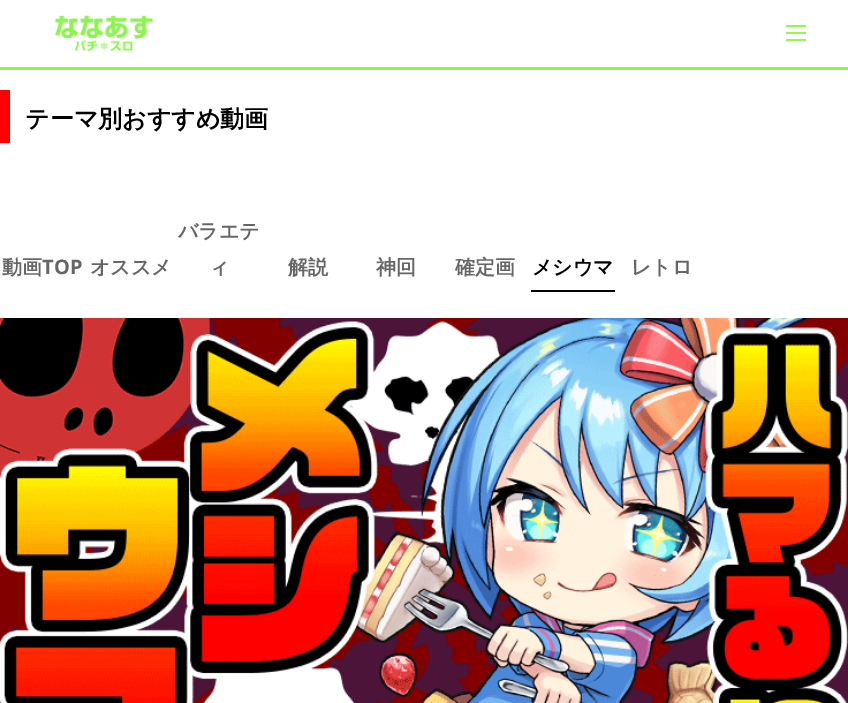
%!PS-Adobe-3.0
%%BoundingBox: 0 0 848 703
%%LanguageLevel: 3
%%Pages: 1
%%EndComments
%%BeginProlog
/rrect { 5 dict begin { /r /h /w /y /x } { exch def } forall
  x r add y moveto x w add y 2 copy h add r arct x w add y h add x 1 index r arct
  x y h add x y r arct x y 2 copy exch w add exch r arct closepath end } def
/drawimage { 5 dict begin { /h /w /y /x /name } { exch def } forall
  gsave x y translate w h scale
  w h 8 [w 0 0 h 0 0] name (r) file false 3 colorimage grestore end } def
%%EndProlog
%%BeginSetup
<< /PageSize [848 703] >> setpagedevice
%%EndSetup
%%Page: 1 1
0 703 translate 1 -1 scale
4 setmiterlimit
1 setgray
0 0 848 703 rectfill
0.549 0.957 0.306 setrgbcolor
0 67 848 3 rectfill
(images/1.raw) 54 15 100 37 drawimage
0.569 0.976 0.306 setrgbcolor
786 32 20 2 1 rrect fill
786 25 20 2 1 rrect fill
786 39 20 2 1 rrect fill
1 0 0 setrgbcolor
0 90 10 53 rectfill
0 setgray
531 290 84 2 rectfill
(images/2.raw) 0 318 848 385 drawimage
/WenQuanYiZenHei-Bold [24 0 0 -24 0 0] selectfont
25 127 moveto (テーマ別おすすめ動画) show
/WenQuanYiZenHei-Bold [20 0 0 -20 0 0] selectfont
0.4 setgray
2 274 moveto (動画) show
/OpenSans-Bold [20 0 0 -20 0 0] selectfont
42 274 moveto (TOP) show
/WenQuanYiZenHei-Bold [20 0 0 -20 0 0] selectfont
90 274 moveto (オススメ) show
178 238 moveto (バラエテ) show
209 274 moveto (ィ) show
288 274 moveto (解説) show
376 274 moveto (神回) show
455 274 moveto (確定画) show
0 setgray
532 274 moveto (メシウマ) show
0.4 setgray
631 274 moveto (レトロ) show
showpage
%%EOF
